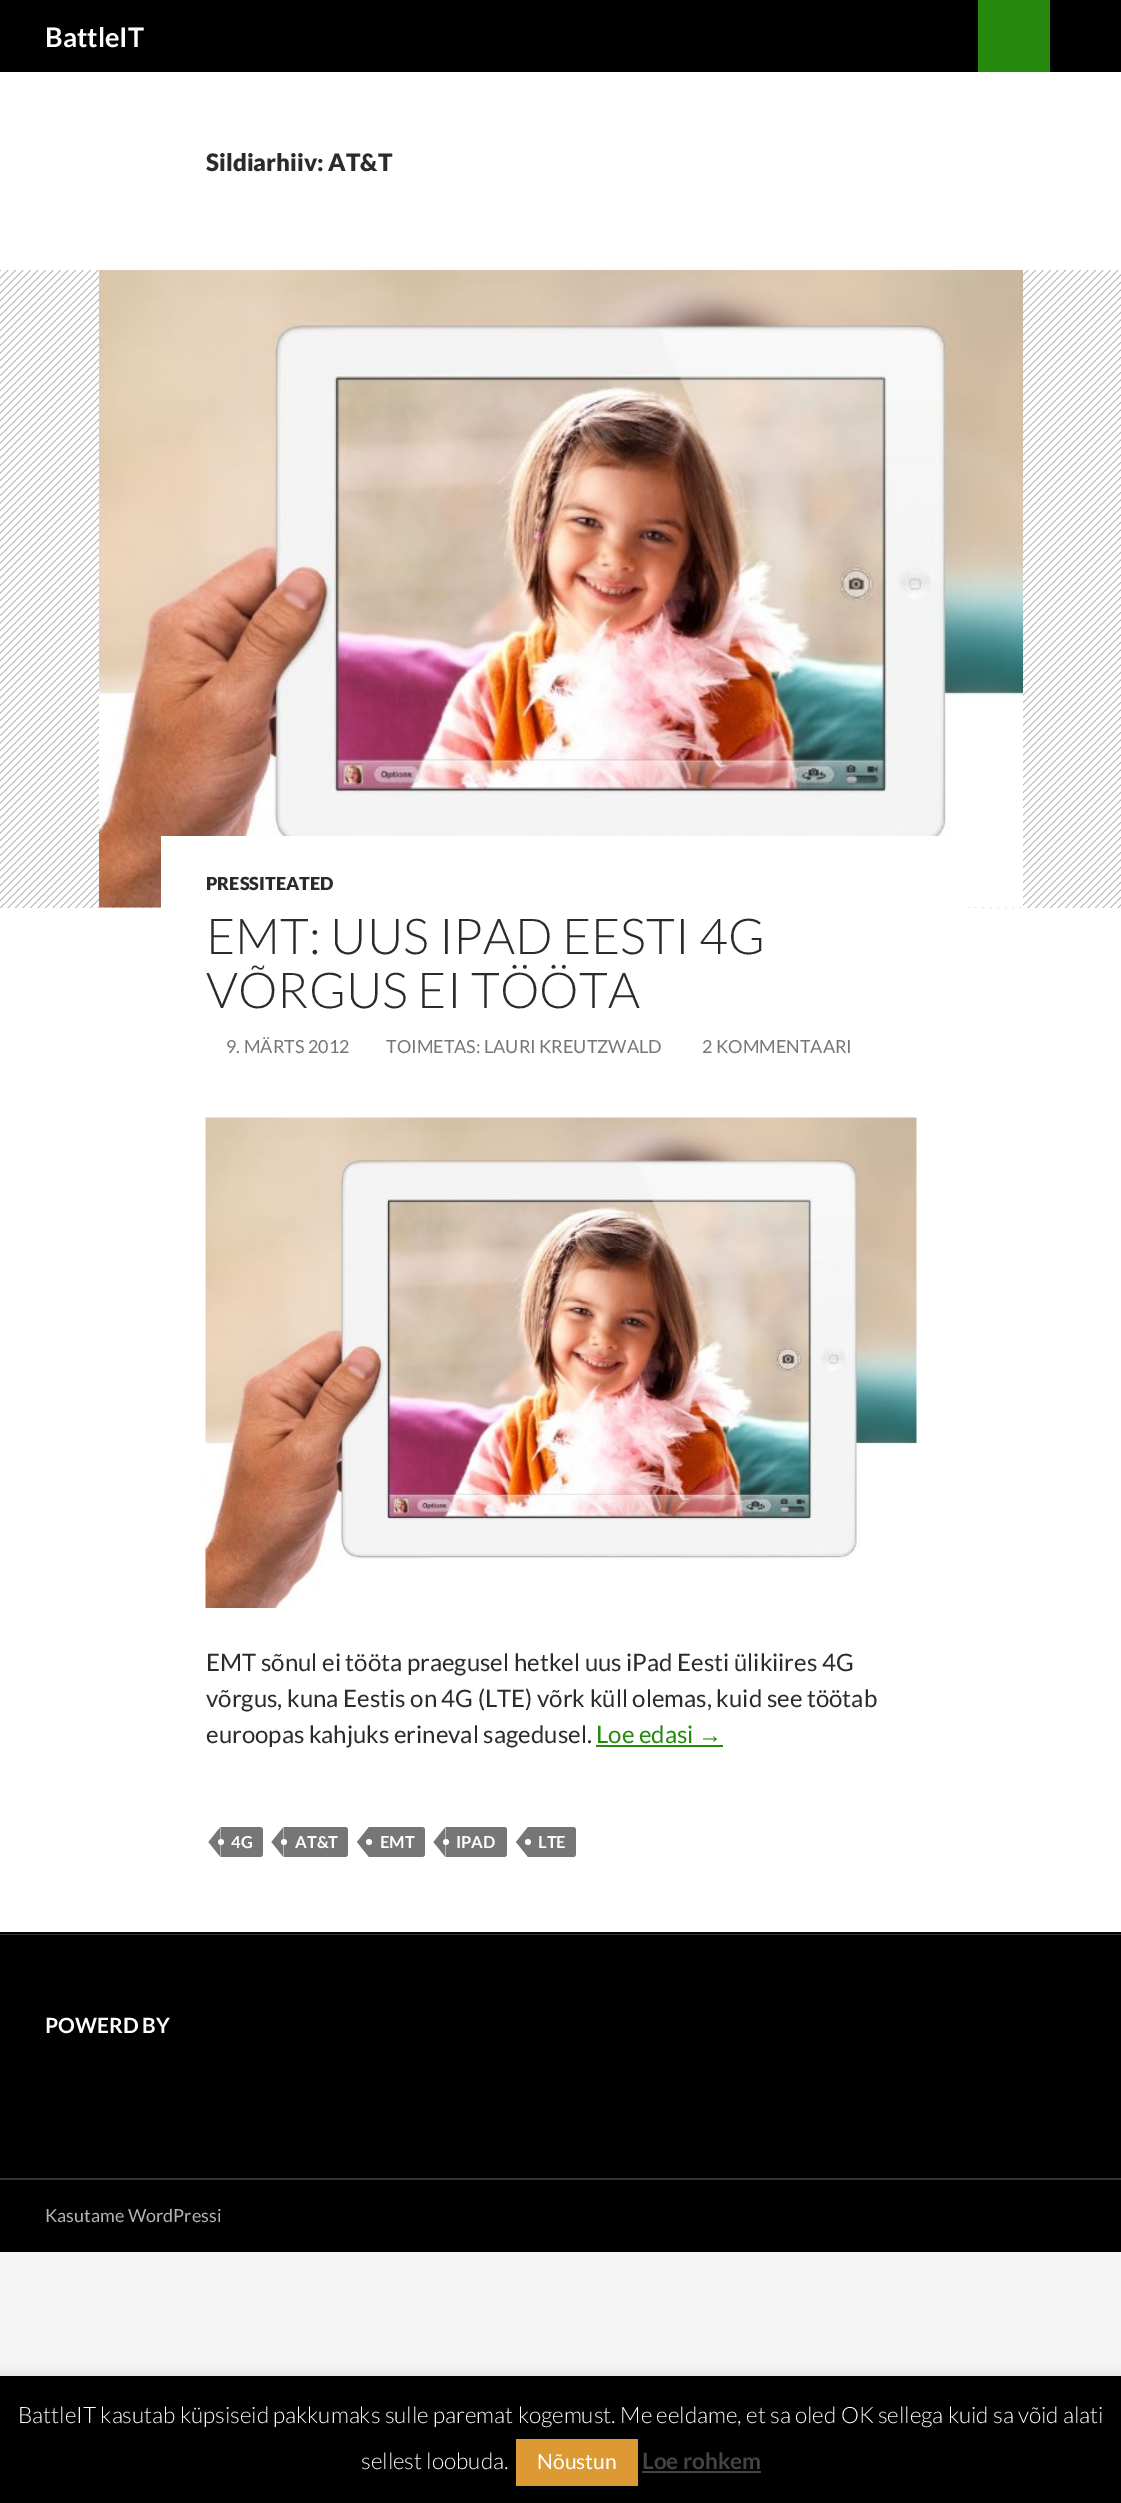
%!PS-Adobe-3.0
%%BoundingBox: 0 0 1121 2503
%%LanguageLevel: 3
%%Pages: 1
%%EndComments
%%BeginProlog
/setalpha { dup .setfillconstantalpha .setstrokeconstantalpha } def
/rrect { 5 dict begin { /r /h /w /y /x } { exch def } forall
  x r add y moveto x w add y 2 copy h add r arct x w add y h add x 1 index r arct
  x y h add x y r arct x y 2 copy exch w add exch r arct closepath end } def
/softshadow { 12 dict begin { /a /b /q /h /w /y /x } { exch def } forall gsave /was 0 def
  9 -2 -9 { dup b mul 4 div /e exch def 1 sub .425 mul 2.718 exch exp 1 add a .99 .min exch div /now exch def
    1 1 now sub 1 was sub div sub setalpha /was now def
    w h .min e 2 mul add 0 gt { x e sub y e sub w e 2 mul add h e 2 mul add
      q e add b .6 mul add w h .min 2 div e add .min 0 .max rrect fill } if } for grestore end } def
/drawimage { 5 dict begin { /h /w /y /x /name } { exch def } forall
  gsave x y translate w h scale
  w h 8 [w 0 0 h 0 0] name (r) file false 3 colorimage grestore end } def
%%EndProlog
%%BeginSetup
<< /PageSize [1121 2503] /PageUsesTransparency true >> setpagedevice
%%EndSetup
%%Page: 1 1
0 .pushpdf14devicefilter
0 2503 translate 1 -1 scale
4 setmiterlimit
0.961 setgray
0 0 1121 2503 rectfill
1 setgray
0 72 1121 1860 rectfill
0 setgray
0 0 1121 72 rectfill
0.141 0.537 0.051 setrgbcolor
978 0 72 72 rectfill
0.698 setgray
0 270 1121 638 rectfill
(images/1.raw) 0 270 1121 638 drawimage
(images/2.raw) 99 270 924 638 drawimage
1 setgray
161 836 801 72 rectfill
(images/3.raw) 205 1117 712 491 drawimage
0.141 0.537 0.051 setrgbcolor
596 1745 127 2 rectfill
0.463 setgray
newpath 221 1827 moveto 260 1827 lineto 261.5 1827 263 1828.5 263 1830 curveto 263 1854 lineto 263 1855.5 261.5 1857 260 1857 curveto 221 1857 lineto closepath fill
newpath 220.5 1827 moveto 220.5 1857 lineto 208.5 1842 lineto closepath fill
1 setgray
newpath 221 1842 3 0 360 arc closepath fill
0.463 setgray
newpath 284 1827 moveto 345 1827 lineto 346.5 1827 348 1828.5 348 1830 curveto 348 1854 lineto 348 1855.5 346.5 1857 345 1857 curveto 284 1857 lineto closepath fill
newpath 283.5 1827 moveto 283.5 1857 lineto 271.5 1842 lineto closepath fill
1 setgray
newpath 284 1842 3 0 360 arc closepath fill
0.463 setgray
newpath 369 1827 moveto 422 1827 lineto 423.5 1827 425 1828.5 425 1830 curveto 425 1854 lineto 425 1855.5 423.5 1857 422 1857 curveto 369 1857 lineto closepath fill
newpath 369 1827 moveto 369 1857 lineto 357 1842 lineto closepath fill
1 setgray
newpath 369 1842 3 0 360 arc closepath fill
0.463 setgray
newpath 446 1827 moveto 504 1827 lineto 505.5 1827 507 1828.5 507 1830 curveto 507 1854 lineto 507 1855.5 505.5 1857 504 1857 curveto 446 1857 lineto closepath fill
newpath 445.5 1827 moveto 445.5 1857 lineto 433.5 1842 lineto closepath fill
1 setgray
newpath 446 1842 3 0 360 arc closepath fill
0.463 setgray
newpath 528 1827 moveto 573 1827 lineto 574.5 1827 576 1828.5 576 1830 curveto 576 1854 lineto 576 1855.5 574.5 1857 573 1857 curveto 528 1857 lineto closepath fill
newpath 528 1827 moveto 528 1857 lineto 516 1842 lineto closepath fill
1 setgray
newpath 528 1842 3 0 360 arc closepath fill
0 setgray
0 1932 1121 2 rectfill
0.2 setgray
0 1934 1121 1 rectfill
0 setgray
0 1935 1121 317 rectfill
0.2 setgray
0 2178 1121 2 rectfill
0.675 0.671 0.671 setrgbcolor
0 2375 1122 127 0 7.5 0.3 softshadow
0 setgray
0 2376 1121 127 rectfill
0.867 0.6 0.2 setrgbcolor
516 2439 122 47 rectfill
0.267 setgray
642 2471 119 2 rectfill
/Lato-Bold [27 0 0 -27 0 0] selectfont
1 setgray
45 47 moveto (BattleIT) show
/Lato-Black [24 0 0 -24 0 0] selectfont
0.169 setgray
206 171 moveto (Sildiarhiiv: AT&T) show
/Lato-Black [18 0 0 -18 0 0] selectfont
206 890 moveto (PRESSITEATED) show
/Lato-Light [49.5 0 0 -49.5 0 0] selectfont
206 954 moveto (EMT: UUS IPAD EESTI 4G) show
206 1008 moveto (VÕRGUS EI TÖÖTA) show
/Lato-Regular [18 0 0 -18 0 0] selectfont
0.463 setgray
226 1053 moveto (9. MÄRTS 2012) show
386 1053 moveto (TOIMETAS: LAURI KREUTZWALD) show
702 1053 moveto (2 KOMMENTAARI) show
/Lato-Regular [24 0 0 -24 0 0] selectfont
0.169 setgray
206 1671 moveto (EMT sõnul ei tööta praegusel hetkel uus iPad Eesti ülikiires 4G) show
206 1707 moveto (võrgus, kuna Eestis on 4G \(LTE\) võrk küll olemas, kuid see töötab) show
206 1743 moveto (euroopas kahjuks erineval sagedusel.) show
0.141 0.537 0.051 setrgbcolor
596 1743 moveto (Loe edasi) show
/LiberationSans-Regular [24 0 0 -24 0 0] selectfont
698 1743 moveto (→) show
/Lato-Bold [16.5 0 0 -16.5 0 0] selectfont
1 setgray
231 1848 moveto (4G) show
295 1848 moveto (AT&T) show
380 1848 moveto (EMT) show
456 1848 moveto (IPAD) show
538 1848 moveto (LTE) show
/Lato-Bold [21 0 0 -21 0 0] selectfont
45 2033 moveto (POWERD BY) show
/Lato-Regular [18 0 0 -18 0 0] selectfont
0.702 setgray
45 2222 moveto (Kasutame WordPressi) show
/Lato-Light [22.5 0 0 -22.5 0 0] selectfont
1 setgray
18 2423 moveto (BattleIT kasutab küpsiseid pakkumaks sulle paremat kogemust. Me eeldame, et sa oled OK sellega kuid sa võid alati) show
361 2469 moveto (sellest loobuda.) show
/Lato-Regular [21 0 0 -21 0 0] selectfont
537 2469 moveto (Nõustun) show
/Lato-Bold [22.5 0 0 -22.5 0 0] selectfont
0.267 setgray
642 2469 moveto (Loe rohkem) show
.poppdf14devicefilter showpage
%%EOF
